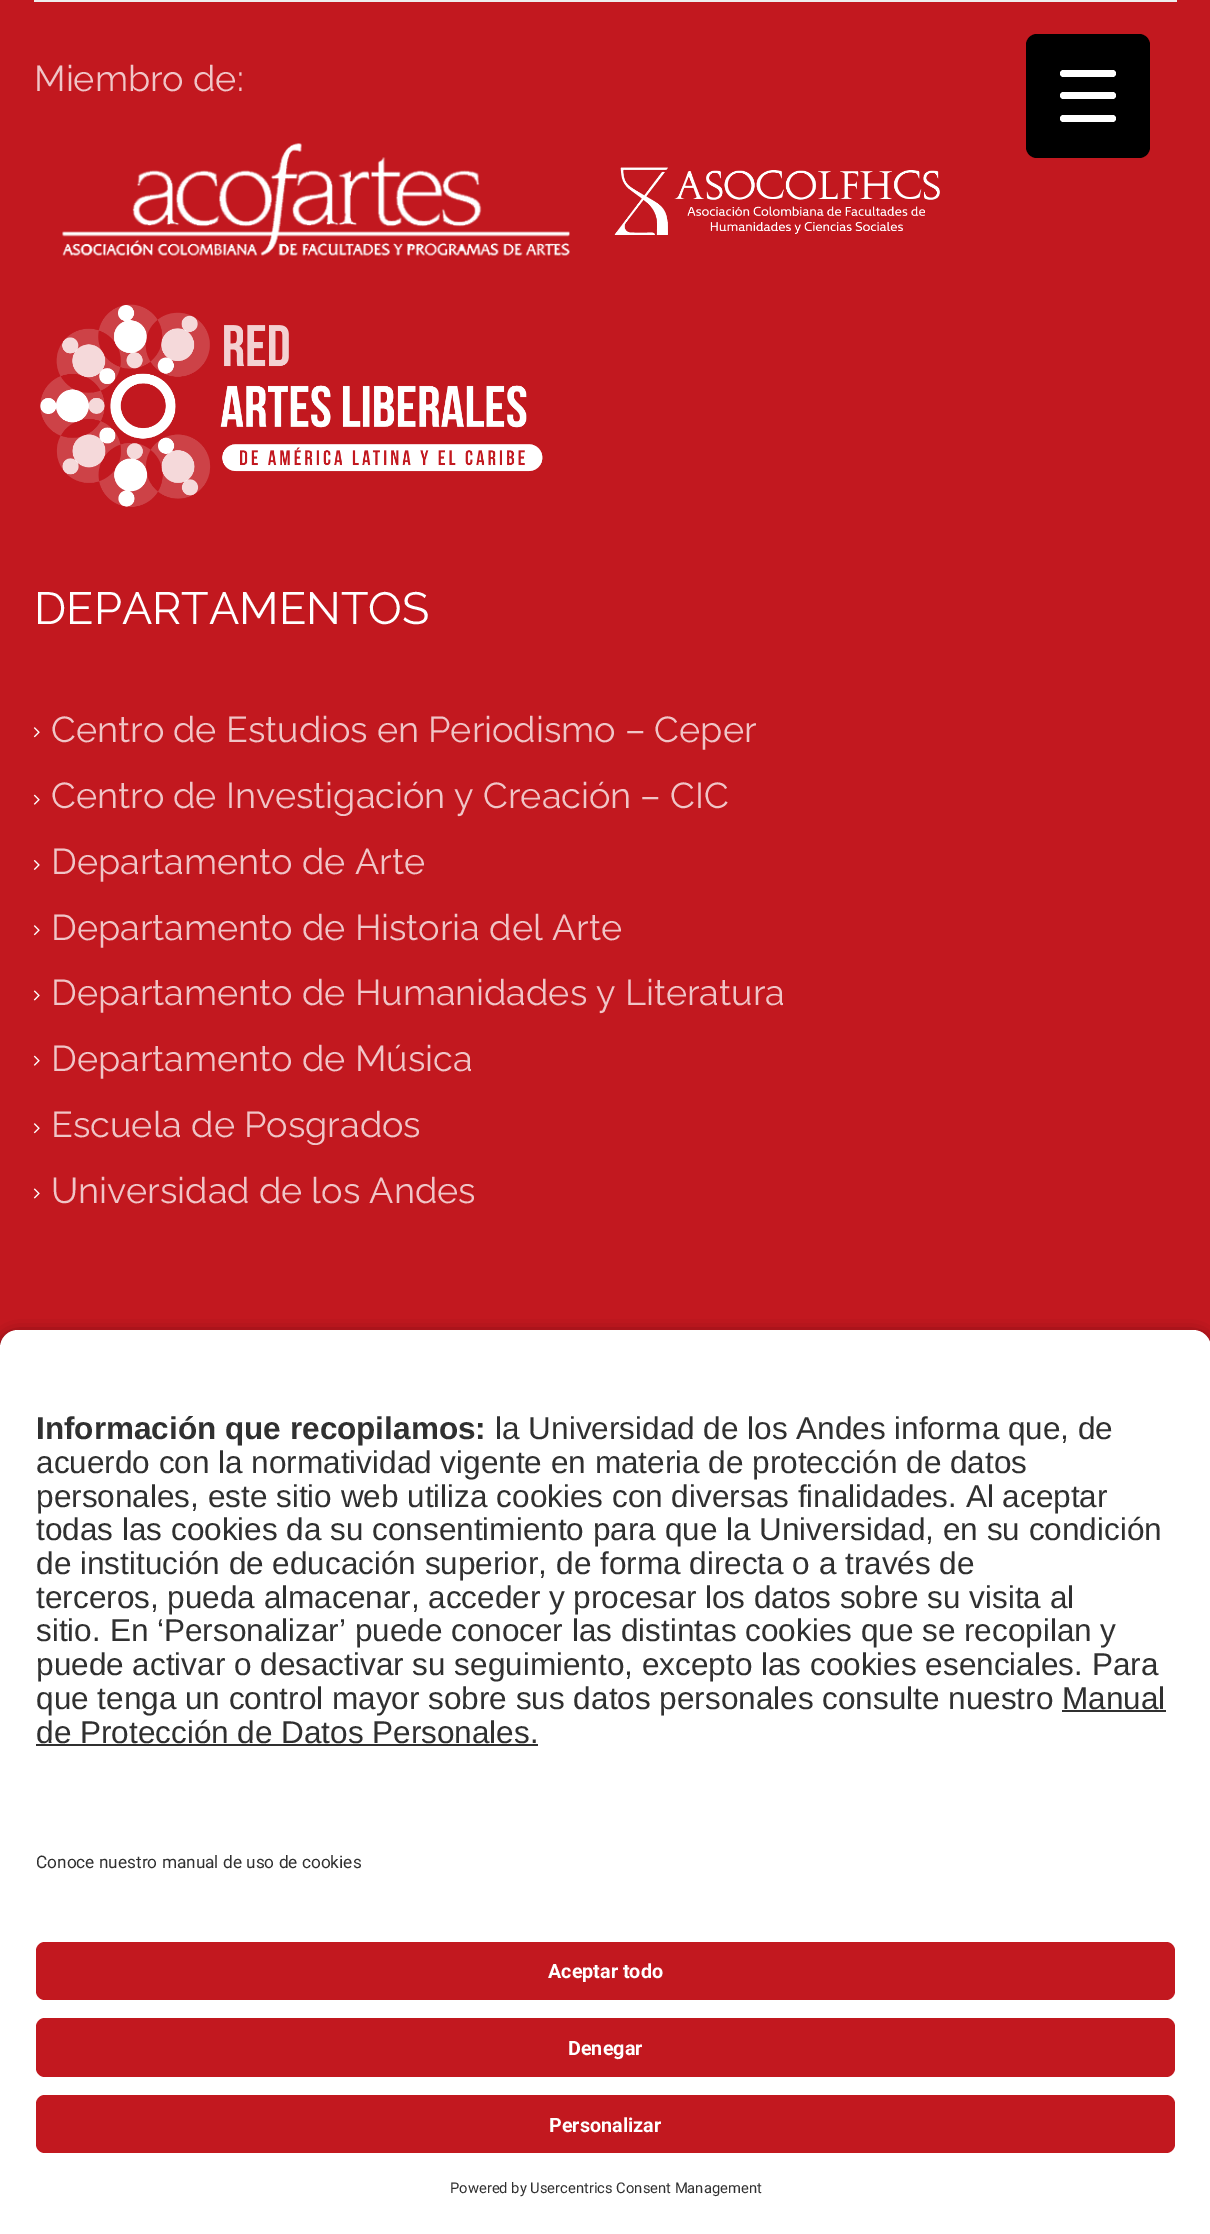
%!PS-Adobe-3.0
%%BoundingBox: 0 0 1210 2234
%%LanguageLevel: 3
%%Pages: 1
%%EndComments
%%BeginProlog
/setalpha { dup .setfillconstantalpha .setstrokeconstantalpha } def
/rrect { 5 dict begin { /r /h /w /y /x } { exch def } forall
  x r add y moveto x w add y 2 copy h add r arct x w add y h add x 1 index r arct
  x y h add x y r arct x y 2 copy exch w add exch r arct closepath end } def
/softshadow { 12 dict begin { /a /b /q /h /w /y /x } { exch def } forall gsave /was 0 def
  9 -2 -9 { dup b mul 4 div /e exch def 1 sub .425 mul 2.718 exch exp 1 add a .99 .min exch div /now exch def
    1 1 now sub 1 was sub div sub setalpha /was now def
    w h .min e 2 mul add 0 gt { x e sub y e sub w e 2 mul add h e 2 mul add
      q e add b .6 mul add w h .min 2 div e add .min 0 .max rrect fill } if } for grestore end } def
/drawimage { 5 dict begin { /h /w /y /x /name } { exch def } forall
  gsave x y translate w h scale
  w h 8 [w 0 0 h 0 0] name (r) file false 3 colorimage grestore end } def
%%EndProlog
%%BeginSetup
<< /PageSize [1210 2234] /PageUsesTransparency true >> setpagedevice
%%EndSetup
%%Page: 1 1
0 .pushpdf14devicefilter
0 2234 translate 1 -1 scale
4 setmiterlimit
0.761 0.094 0.122 setrgbcolor
0 0 1210 2234 rectfill
0.933 setgray
34 0 1143 2 rectfill
(images/1.raw) 62 143 508 113 drawimage
(images/2.raw) 614 167 326 68 drawimage
(images/3.raw) 40 304 503 203 drawimage
(images/4.raw) 33 727 7 11 drawimage
(images/5.raw) 33 794 7 11 drawimage
(images/6.raw) 33 860 7 10 drawimage
(images/4.raw) 33 925 7 11 drawimage
(images/7.raw) 33 990 7 11 drawimage
(images/5.raw) 33 1055 7 11 drawimage
(images/4.raw) 33 1123 7 11 drawimage
(images/7.raw) 33 1188 7 11 drawimage
0 setgray
1026 34 124 124 11 rrect fill
1 setgray
1060 92 56 7 3.5 rrect fill
1060 70 56 7 3.5 rrect fill
1060 115 56 7 3.5 rrect fill
0 setgray
0 1337 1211 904 18 8 0.8 softshadow
1 setgray
newpath 18 1330 moveto 1193 1330 lineto 1203 1330 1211 1338 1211 1348 curveto 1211 1814 lineto 0 1814 lineto 0 1348 lineto 0 1338 8 1330 18 1330 curveto closepath fill
0.188 setgray
1062 1710 104 2 rectfill
36 1744 502 2 rectfill
1 setgray
0 1814 1210 420 rectfill
0.761 0.094 0.122 setrgbcolor
36 1942 1139 58 9 rrect fill
36 2018 1139 59 9 rrect fill
36 2095 1139 58 9 rrect fill
/Raleway-Thin [36 0 0 -36 0 0] selectfont
0.941 0.773 0.78 setrgbcolor
34 91 moveto (Miembro de:) show
/Raleway-Thin [45 0 0 -45 0 0] selectfont
1 setgray
34 624 moveto (DEPARTAMENTOS) show
/Raleway-Thin [36 0 0 -36 0 0] selectfont
0.941 0.773 0.78 setrgbcolor
51 742 moveto (Centro de Estudios en Periodismo – Ceper) show
51 808 moveto (Centro de Investigación y Creación – CIC) show
51 874 moveto (Departamento de Arte) show
51 940 moveto (Departamento de Historia del Arte) show
51 1005 moveto (Departamento de Humanidades y Literatura) show
51 1071 moveto (Departamento de Música) show
51 1137 moveto (Escuela de Posgrados) show
51 1203 moveto (Universidad de los Andes) show
/LiberationSans-Bold [31.5 0 0 -31.5 0 0] selectfont
0.188 setgray
36 1439 moveto (Información que recopilamos:) show
/LiberationSans-Regular [31.5 0 0 -31.5 0 0] selectfont
495 1439 moveto (la Universidad de los Andes informa que, de) show
36 1473 moveto (acuerdo con la normatividad vigente en materia de protección de datos) show
36 1507 moveto (personales, este sitio web utiliza cookies con diversas finalidades. Al aceptar) show
36 1540 moveto (todas las cookies da su consentimiento para que la Universidad, en su condición) show
36 1574 moveto (de institución de educación superior, de forma directa o a través de) show
36 1608 moveto (terceros, pueda almacenar, acceder y procesar los datos sobre su visita al) show
36 1641 moveto (sitio. En ‘Personalizar’ puede conocer las distintas cookies que se recopilan y) show
36 1675 moveto (puede activar o desactivar su seguimiento, excepto las cookies esenciales. Para) show
36 1709 moveto (que tenga un control mayor sobre sus datos personales consulte nuestro Manual) show
36 1743 moveto (de Protección de Datos Personales.) show
/Roboto-Regular [17.25 0 0 -17.25 0 0] selectfont
36 1868 moveto (Conoce nuestro manual de uso de cookies) show
/Roboto-Bold [19.75 0 0 -19.75 0 0] selectfont
1 setgray
548 1978 moveto (Aceptar todo) show
568 2055 moveto (Denegar) show
549 2132 moveto (Personalizar) show
/Roboto-Regular [14.75 0 0 -14.75 0 0] selectfont
0.188 setgray
450 2193 moveto (Powered by Usercentrics Consent Management) show
.poppdf14devicefilter showpage
%%EOF
